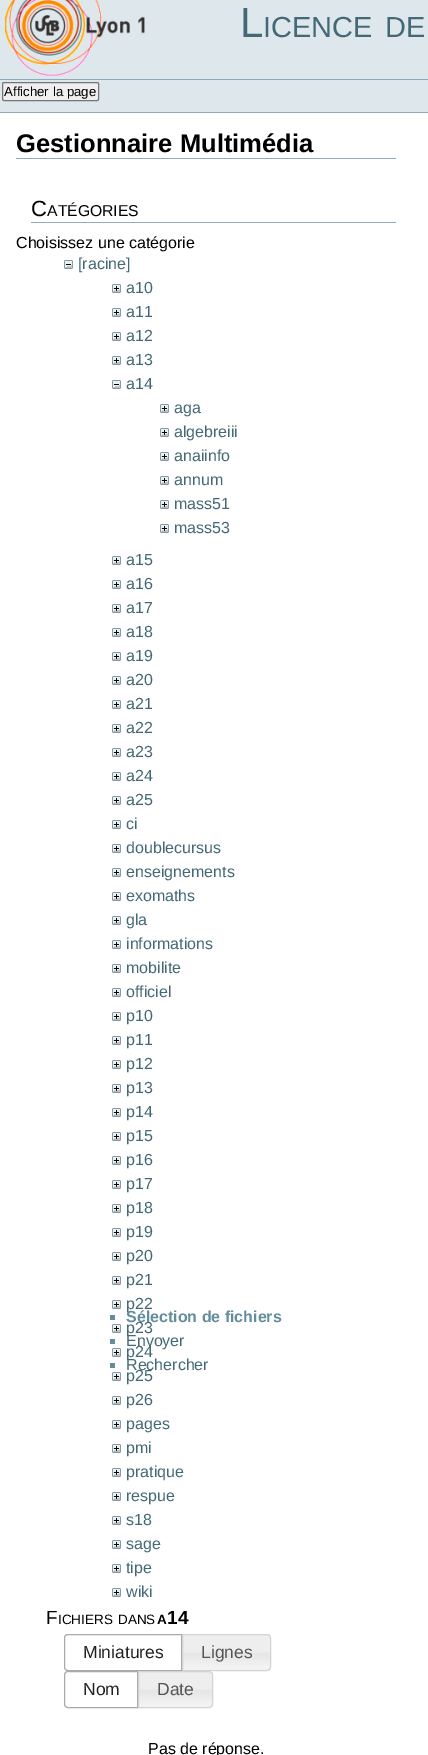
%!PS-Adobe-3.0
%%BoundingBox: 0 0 428 1755
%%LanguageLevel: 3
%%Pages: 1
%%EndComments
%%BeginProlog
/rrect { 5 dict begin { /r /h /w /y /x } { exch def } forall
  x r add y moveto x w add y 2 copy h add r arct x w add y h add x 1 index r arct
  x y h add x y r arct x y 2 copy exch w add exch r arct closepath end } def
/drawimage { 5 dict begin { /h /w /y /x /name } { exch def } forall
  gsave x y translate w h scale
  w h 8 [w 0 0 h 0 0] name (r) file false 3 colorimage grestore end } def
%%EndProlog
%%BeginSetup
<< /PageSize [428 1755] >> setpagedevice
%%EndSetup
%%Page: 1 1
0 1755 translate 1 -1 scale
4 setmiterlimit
1 setgray
0 0 428 1755 rectfill
0.871 0.906 0.925 setrgbcolor
0 0 428 112 rectfill
(images/1.raw) 5 0 140 77 drawimage
0.549 0.675 0.733 setrgbcolor
0 79 428 1 rectfill
0 112 428 1 rectfill
0.937 setgray
2.5 82.5 96 18 1.5 rrect gsave fill grestore
0.463 setgray
stroke
0.549 0.675 0.733 setrgbcolor
16 158 380 1 rectfill
31 222 365 1 rectfill
(images/2.raw) 64 260 9 9 drawimage
(images/3.raw) 112 284 9 9 drawimage
(images/3.raw) 112 308 9 9 drawimage
(images/3.raw) 112 332 9 9 drawimage
(images/3.raw) 112 356 9 9 drawimage
(images/2.raw) 112 380 9 9 drawimage
(images/3.raw) 160 404 9 9 drawimage
(images/3.raw) 160 428 9 9 drawimage
(images/3.raw) 160 452 9 9 drawimage
(images/3.raw) 160 476 9 9 drawimage
(images/3.raw) 160 500 9 9 drawimage
(images/3.raw) 160 524 9 9 drawimage
(images/3.raw) 112 556 9 9 drawimage
(images/3.raw) 112 580 9 9 drawimage
(images/3.raw) 112 604 9 9 drawimage
(images/3.raw) 112 628 9 9 drawimage
(images/3.raw) 112 652 9 9 drawimage
(images/3.raw) 112 676 9 9 drawimage
(images/3.raw) 112 700 9 9 drawimage
(images/3.raw) 112 724 9 9 drawimage
(images/3.raw) 112 748 9 9 drawimage
(images/3.raw) 112 772 9 9 drawimage
(images/3.raw) 112 796 9 9 drawimage
(images/3.raw) 112 820 9 9 drawimage
(images/3.raw) 112 844 9 9 drawimage
(images/3.raw) 112 868 9 9 drawimage
(images/3.raw) 112 892 9 9 drawimage
(images/3.raw) 112 916 9 9 drawimage
(images/3.raw) 112 940 9 9 drawimage
(images/3.raw) 112 964 9 9 drawimage
(images/3.raw) 112 988 9 9 drawimage
(images/3.raw) 112 1012 9 9 drawimage
(images/3.raw) 112 1036 9 9 drawimage
(images/3.raw) 112 1060 9 9 drawimage
(images/3.raw) 112 1084 9 9 drawimage
(images/3.raw) 112 1108 9 9 drawimage
(images/3.raw) 112 1132 9 9 drawimage
(images/3.raw) 112 1156 9 9 drawimage
(images/3.raw) 112 1180 9 9 drawimage
(images/3.raw) 112 1204 9 9 drawimage
(images/3.raw) 112 1228 9 9 drawimage
(images/3.raw) 112 1252 9 9 drawimage
(images/3.raw) 112 1276 9 9 drawimage
(images/3.raw) 112 1300 9 9 drawimage
(images/3.raw) 112 1324 9 9 drawimage
(images/3.raw) 112 1348 9 9 drawimage
(images/3.raw) 112 1372 9 9 drawimage
(images/3.raw) 112 1396 9 9 drawimage
(images/3.raw) 112 1420 9 9 drawimage
(images/3.raw) 112 1444 9 9 drawimage
(images/3.raw) 112 1468 9 9 drawimage
(images/3.raw) 112 1492 9 9 drawimage
(images/3.raw) 112 1516 9 9 drawimage
(images/3.raw) 112 1540 9 9 drawimage
(images/3.raw) 112 1564 9 9 drawimage
(images/3.raw) 112 1588 9 9 drawimage
0.388 0.549 0.612 setrgbcolor
110 1315 5 5 rectfill
110 1339 5 5 rectfill
110 1363 5 5 rectfill
0.667 setgray
newpath 68 1634.5 moveto 181.5 1634.5 lineto 181.5 1670.5 lineto 68 1670.5 lineto 66 1670.5 64.5 1669 64.5 1667 curveto 64.5 1638 lineto 64.5 1636 66 1634.5 68 1634.5 curveto closepath stroke
(images/4.raw) 183 1634 88 37 drawimage
0.827 setgray
newpath 182.5 1634.5 moveto 267 1634.5 lineto 269 1634.5 270.5 1636 270.5 1638 curveto 270.5 1667 lineto 270.5 1669 269 1670.5 267 1670.5 curveto 182.5 1670.5 lineto closepath stroke
0.667 setgray
newpath 68 1671.5 moveto 137.5 1671.5 lineto 137.5 1707.5 lineto 68 1707.5 lineto 66 1707.5 64.5 1706 64.5 1704 curveto 64.5 1675 lineto 64.5 1673 66 1671.5 68 1671.5 curveto closepath stroke
(images/5.raw) 139 1671 74 37 drawimage
0.827 setgray
newpath 138.5 1671.5 moveto 209 1671.5 lineto 211 1671.5 212.5 1673 212.5 1675 curveto 212.5 1704 lineto 212.5 1706 211 1707.5 209 1707.5 curveto 138.5 1707.5 lineto closepath stroke
/LiberationSans-Regular [42 0 0 -42 0 0] selectfont
0.263 0.412 0.463 setrgbcolor
240 37 moveto (L) show
/LiberationSans-Regular [29 0 0 -29 0 0] selectfont
263 37 moveto (ICENCE) show
385 37 moveto (DE) show
/LiberationSans-Regular [13.25 0 0 -13.25 0 0] selectfont
0 setgray
4 96 moveto (Afficher la page) show
/LiberationSans-Bold [25.6 0 0 -25.6 0 0] selectfont
16 152 moveto (Gestionnaire Multimédia) show
/LiberationSans-Regular [22 0 0 -22 0 0] selectfont
31 216 moveto (C) show
/LiberationSans-Regular [15.75 0 0 -15.75 0 0] selectfont
47 216 moveto (ATÉGORIES) show
/LiberationSans-Regular [16 0 0 -16 0 0] selectfont
16 248 moveto (Choisissez une catégorie) show
0.263 0.412 0.463 setrgbcolor
78 269 moveto ([racine]) show
126 293 moveto (a10) show
126 317 moveto (a11) show
126 341 moveto (a12) show
126 365 moveto (a13) show
126 389 moveto (a14) show
174 413 moveto (aga) show
174 437 moveto (algebreiii) show
174 461 moveto (anaiinfo) show
174 485 moveto (annum) show
174 509 moveto (mass51) show
174 533 moveto (mass53) show
126 565 moveto (a15) show
126 589 moveto (a16) show
126 613 moveto (a17) show
126 637 moveto (a18) show
126 661 moveto (a19) show
126 685 moveto (a20) show
126 709 moveto (a21) show
126 733 moveto (a22) show
126 757 moveto (a23) show
126 781 moveto (a24) show
126 805 moveto (a25) show
126 829 moveto (ci) show
126 853 moveto (doublecursus) show
126 877 moveto (enseignements) show
126 901 moveto (exomaths) show
126 925 moveto (gla) show
126 949 moveto (informations) show
126 973 moveto (mobilite) show
126 997 moveto (officiel) show
126 1021 moveto (p10) show
126 1045 moveto (p11) show
126 1069 moveto (p12) show
126 1093 moveto (p13) show
126 1117 moveto (p14) show
126 1141 moveto (p15) show
126 1165 moveto (p16) show
126 1189 moveto (p17) show
126 1213 moveto (p18) show
126 1237 moveto (p19) show
126 1261 moveto (p20) show
126 1285 moveto (p21) show
126 1309 moveto (p22) show
126 1333 moveto (p23) show
126 1357 moveto (p24) show
126 1381 moveto (p25) show
126 1405 moveto (p26) show
126 1429 moveto (pages) show
126 1453 moveto (pmi) show
126 1477 moveto (pratique) show
126 1501 moveto (respue) show
126 1525 moveto (s18) show
126 1549 moveto (sage) show
126 1573 moveto (tipe) show
126 1597 moveto (wiki) show
/LiberationSans-Bold [16 0 0 -16 0 0] selectfont
0.388 0.549 0.612 setrgbcolor
126 1322 moveto (Sélection de fichiers) show
/LiberationSans-Regular [16 0 0 -16 0 0] selectfont
0.263 0.412 0.463 setrgbcolor
126 1346 moveto (Envoyer) show
126 1370 moveto (Rechercher) show
/LiberationSans-Regular [19 0 0 -19 0 0] selectfont
0 setgray
46 1624 moveto (F) show
/LiberationSans-Regular [13.5 0 0 -13.5 0 0] selectfont
58 1624 moveto (ICHIERS) show
118 1624 moveto (DANS) show
/LiberationSans-Bold [13.5 0 0 -13.5 0 0] selectfont
157 1624 moveto (A) show
/LiberationSans-Bold [19 0 0 -19 0 0] selectfont
167 1624 moveto (14) show
/LiberationSans-Regular [17.5 0 0 -17.5 0 0] selectfont
0.129 setgray
83 1658 moveto (Miniatures) show
0.333 setgray
201 1658 moveto (Lignes) show
0.129 setgray
83 1695 moveto (Nom) show
0.333 setgray
157 1695 moveto (Date) show
/LiberationSans-Regular [16 0 0 -16 0 0] selectfont
0 setgray
148 1754 moveto (Pas de réponse.) show
showpage
%%EOF
